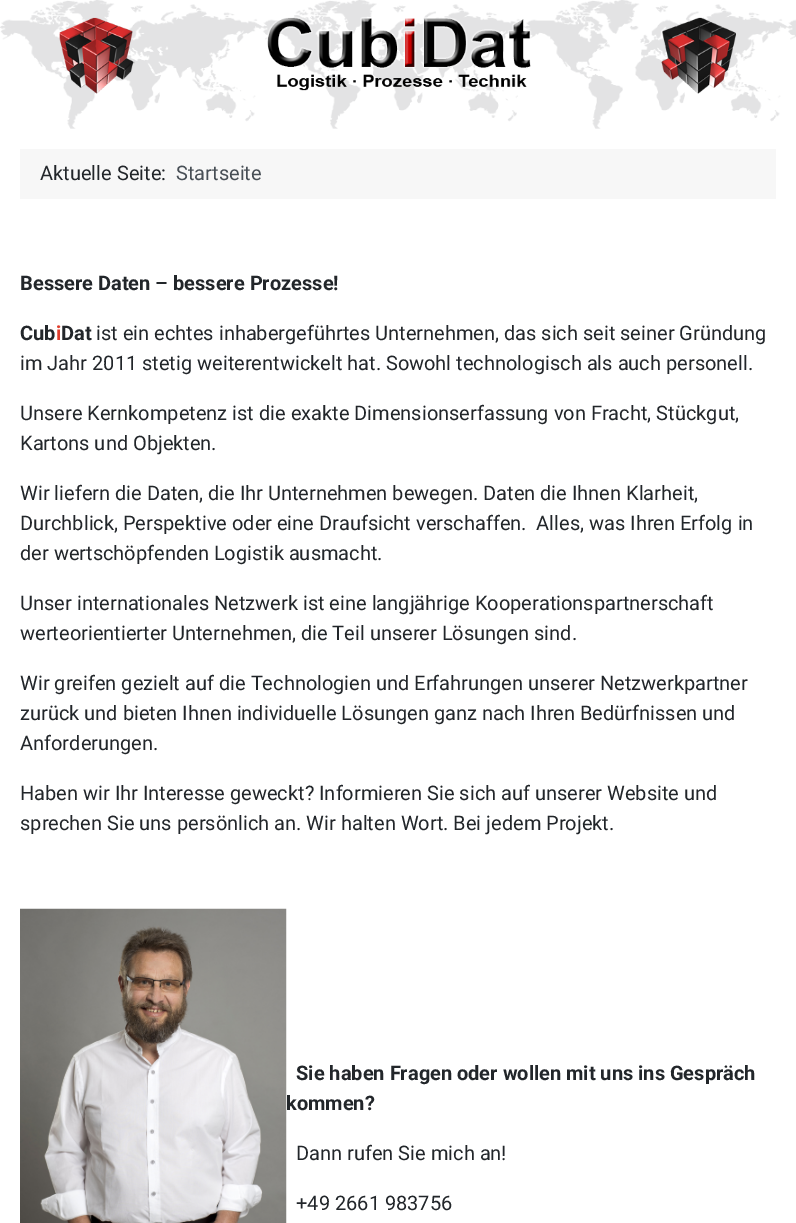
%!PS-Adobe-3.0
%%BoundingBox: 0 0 796 1223
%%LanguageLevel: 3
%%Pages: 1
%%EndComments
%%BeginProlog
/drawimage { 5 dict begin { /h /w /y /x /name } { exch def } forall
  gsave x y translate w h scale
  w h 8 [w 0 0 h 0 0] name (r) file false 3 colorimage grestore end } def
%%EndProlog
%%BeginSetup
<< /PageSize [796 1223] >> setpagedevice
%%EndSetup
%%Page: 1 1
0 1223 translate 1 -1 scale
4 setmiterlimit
1 setgray
0 0 796 1223 rectfill
(images/1.raw) 0 0 796 129 drawimage
(images/2.raw) 59 16 677 78 drawimage
0.969 setgray
20 149 756 50 rectfill
(images/3.raw) 20 908 267 315 drawimage
/Roboto-Regular [20 0 0 -20 0 0] selectfont
0.133 0.149 0.165 setrgbcolor
40 180 moveto (Aktuelle Seite:) show
0.282 0.31 0.337 setrgbcolor
176 180 moveto (Startseite) show
/Roboto-Bold [20 0 0 -20 0 0] selectfont
0.133 0.149 0.165 setrgbcolor
20 290 moveto (Bessere Daten – bessere Prozesse!) show
20 340 moveto (Cub) show
0.878 0.243 0.176 setrgbcolor
56 340 moveto (i) show
0.133 0.149 0.165 setrgbcolor
61 340 moveto (Dat) show
/Roboto-Regular [20 0 0 -20 0 0] selectfont
96 340 moveto (ist ein echtes inhabergeführtes Unternehmen, das sich seit seiner Gründung) show
20 370 moveto (im Jahr 2011 stetig weiterentwickelt hat. Sowohl technologisch als auch personell.) show
20 420 moveto (Unsere Kernkompetenz ist die exakte Dimensionserfassung von Fracht, Stückgut,) show
20 450 moveto (Kartons und Objekten.) show
20 500 moveto (Wir liefern die Daten, die Ihr Unternehmen bewegen. Daten die Ihnen Klarheit,) show
20 530 moveto (Durchblick, Perspektive oder eine Draufsicht verschaffen.  Alles, was Ihren Erfolg in) show
20 560 moveto (der wertschöpfenden Logistik ausmacht.) show
20 610 moveto (Unser internationales Netzwerk ist eine langjährige Kooperationspartnerschaft) show
20 640 moveto (werteorientierter Unternehmen, die Teil unserer Lösungen sind.) show
20 690 moveto (Wir greifen gezielt auf die Technologien und Erfahrungen unserer Netzwerkpartner) show
20 720 moveto (zurück und bieten Ihnen individuelle Lösungen ganz nach Ihren Bedürfnissen und) show
20 750 moveto (Anforderungen.) show
20 800 moveto (Haben wir Ihr Interesse geweckt? Informieren Sie sich auf unserer Website und) show
20 830 moveto (sprechen Sie uns persönlich an. Wir halten Wort. Bei jedem Projekt.) show
/Roboto-Bold [20 0 0 -20 0 0] selectfont
296 1080 moveto (Sie haben Fragen oder wollen mit uns ins Gespräch) show
286 1110 moveto (kommen?) show
/Roboto-Regular [20 0 0 -20 0 0] selectfont
296 1160 moveto (Dann rufen Sie mich an!) show
296 1210 moveto (+49 2661 983756) show
showpage
%%EOF
